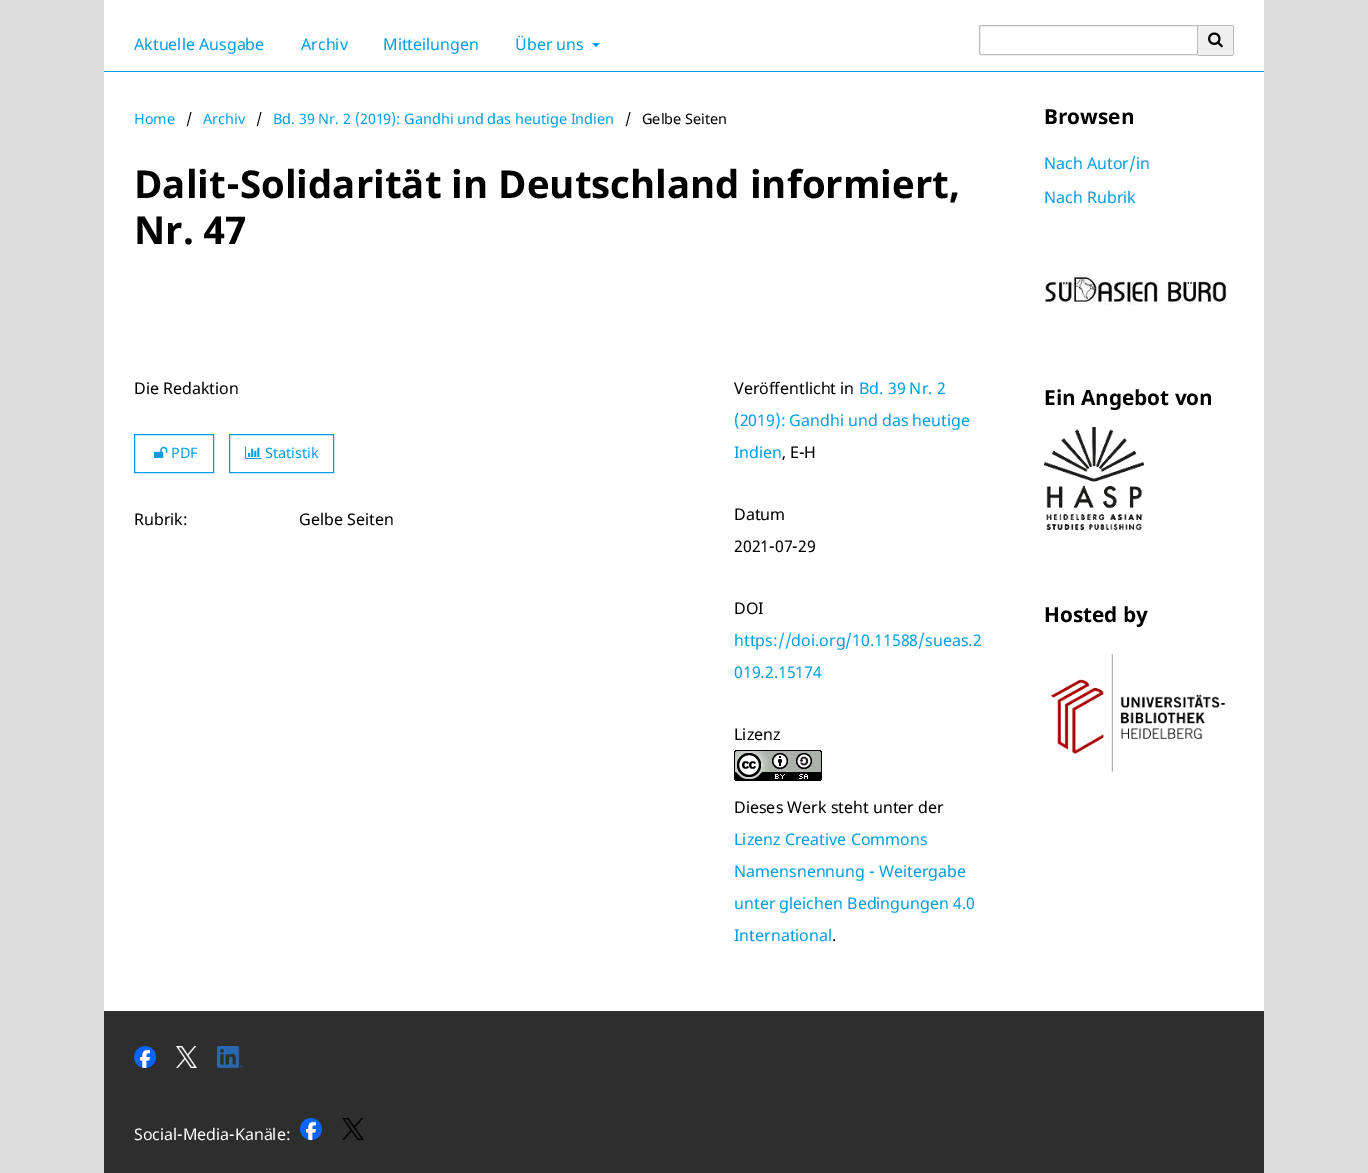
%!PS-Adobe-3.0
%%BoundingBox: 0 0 1368 1173
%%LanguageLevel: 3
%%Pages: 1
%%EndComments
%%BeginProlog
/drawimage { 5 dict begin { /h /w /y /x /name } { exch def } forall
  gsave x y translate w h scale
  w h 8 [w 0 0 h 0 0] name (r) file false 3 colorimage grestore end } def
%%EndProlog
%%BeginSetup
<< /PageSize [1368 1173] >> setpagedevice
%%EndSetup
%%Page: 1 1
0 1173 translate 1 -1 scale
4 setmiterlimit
0.867 setgray
0 0 1368 1173 rectfill
1 setgray
104 0 1160 71 rectfill
0 0.616 0.878 setrgbcolor
104 71 1160 1 rectfill
0.992 0.996 0.98 setrgbcolor
347 0 2 1 rectfill
0 0.616 0.878 setrgbcolor
newpath 592 43 moveto 600 43 lineto 596 47 lineto closepath fill
0.733 setgray
newpath 981 25.5 moveto 1197.5 25.5 lineto 1197.5 54.5 lineto 981 54.5 lineto 980 54.5 979.5 54 979.5 53 curveto 979.5 27 lineto 979.5 26 980 25.5 981 25.5 curveto closepath stroke
0.937 setgray
newpath 1198 25 moveto 1232 25 lineto 1233 25 1234 26 1234 27 curveto 1234 54 lineto 1234 55 1233 56 1232 56 curveto 1198 56 lineto closepath fill
0.733 setgray
1198 25 35 1 rectfill
1233 26 1 29 rectfill
1198 55 35 1 rectfill
(images/1.raw) 1208 32 15 16 drawimage
1 setgray
104 72 1160 939 rectfill
0 0.616 0.878 setrgbcolor
134.5 434.5 79 38 rectstroke
(images/2.raw) 154 446 14 12 drawimage
229.5 434.5 104 38 rectstroke
(images/3.raw) 245 446 17 14 drawimage
(images/4.raw) 734 750 88 31 drawimage
(images/5.raw) 1044 275 183 30 drawimage
(images/6.raw) 1044 427 100 103 drawimage
(images/7.raw) 1050 654 176 118 drawimage
0.18 setgray
104 1011 1160 162 rectfill
(images/8.raw) 134 1046 22 22 drawimage
(images/9.raw) 176 1046 21 22 drawimage
(images/10.raw) 217 1046 26 22 drawimage
(images/11.raw) 300 1118 22 22 drawimage
(images/12.raw) 342 1118 22 22 drawimage
/NotoSans-Regular [16 0 0 -16 0 0] selectfont
0 0.616 0.878 setrgbcolor
134 50 moveto (Aktuelle Ausgabe) show
301 50 moveto (Archiv) show
383 50 moveto (Mitteilungen) show
515 50 moveto (Über uns) show
/NotoSans-Regular [14.4 0 0 -14.4 0 0] selectfont
134 124 moveto (Home) show
0 setgray
186 124 moveto (/) show
0 0.616 0.878 setrgbcolor
203 124 moveto (Archiv) show
0 setgray
256 124 moveto (/) show
0 0.616 0.878 setrgbcolor
273 124 moveto (Bd. 39 Nr. 2 \(2019\): Gandhi und das heutige Indien) show
0 setgray
625 124 moveto (/) show
642 124 moveto (Gelbe Seiten) show
/NotoSans-Bold [38.4 0 0 -38.4 0 0] selectfont
134 198 moveto (Dalit-Solidarität in Deutschland informiert,) show
134 244 moveto (Nr. 47) show
/NotoSans-Regular [16 0 0 -16 0 0] selectfont
134 394 moveto (Die Redaktion) show
/NotoSans-Regular [14.4 0 0 -14.4 0 0] selectfont
0 0.616 0.878 setrgbcolor
171 458 moveto (PDF) show
265 458 moveto (Statistik) show
/NotoSans-Regular [16 0 0 -16 0 0] selectfont
0 setgray
134 525 moveto (Rubrik:) show
299 525 moveto (Gelbe Seiten) show
734 394 moveto (Veröffentlicht in) show
0 0.616 0.878 setrgbcolor
859 394 moveto (Bd. 39 Nr. 2) show
734 426 moveto (\(2019\): Gandhi und das heutige) show
734 458 moveto (Indien) show
0 setgray
782 458 moveto (, E-H) show
734 520 moveto (Datum) show
734 552 moveto (2021-07-29) show
734 614 moveto (DOI) show
0 0.616 0.878 setrgbcolor
734 646 moveto (https://doi.org/10.11588/sueas.2) show
734 678 moveto (019.2.15174) show
0 setgray
734 740 moveto (Lizenz) show
734 813 moveto (Dieses Werk steht unter der) show
0 0.616 0.878 setrgbcolor
734 845 moveto (Lizenz Creative Commons) show
734 877 moveto (Namensnennung - Weitergabe) show
734 909 moveto (unter gleichen Bedingungen 4.0) show
734 941 moveto (International) show
0 setgray
832 941 moveto (.) show
/NotoSans-Bold [20.75 0 0 -20.75 0 0] selectfont
1044 124 moveto (Browsen) show
/NotoSans-Regular [16 0 0 -16 0 0] selectfont
0 0.616 0.878 setrgbcolor
1044 169 moveto (Nach Autor/in) show
1044 203 moveto (Nach Rubrik) show
/NotoSans-Bold [20.75 0 0 -20.75 0 0] selectfont
0 setgray
1044 405 moveto (Ein Angebot von) show
1044 622 moveto (Hosted by) show
/NotoSans-Regular [16 0 0 -16 0 0] selectfont
1 setgray
134 1140 moveto (Social-Media-Kanäle:) show
showpage
%%EOF
